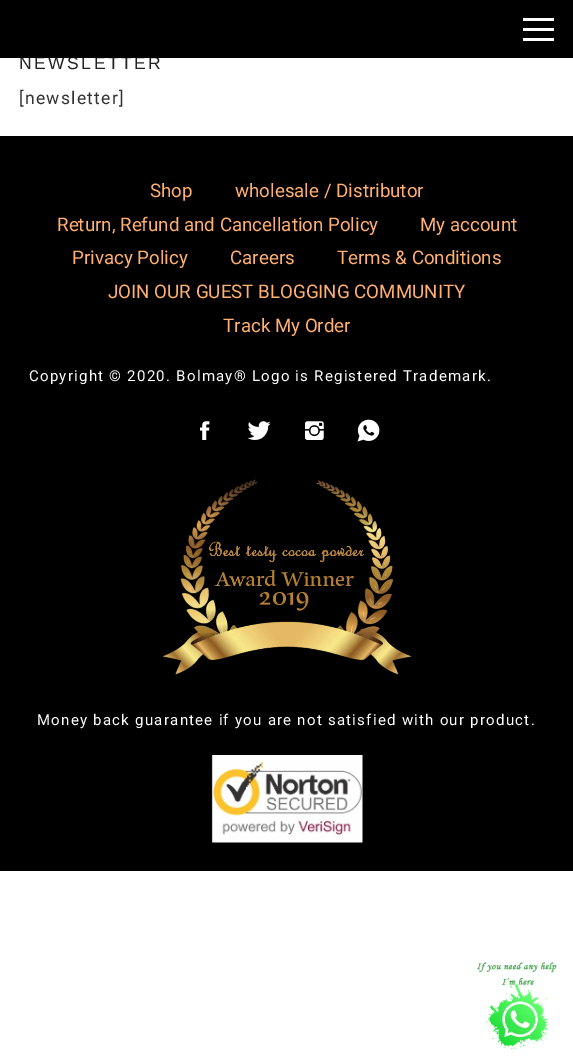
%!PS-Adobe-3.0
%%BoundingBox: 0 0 573 1057
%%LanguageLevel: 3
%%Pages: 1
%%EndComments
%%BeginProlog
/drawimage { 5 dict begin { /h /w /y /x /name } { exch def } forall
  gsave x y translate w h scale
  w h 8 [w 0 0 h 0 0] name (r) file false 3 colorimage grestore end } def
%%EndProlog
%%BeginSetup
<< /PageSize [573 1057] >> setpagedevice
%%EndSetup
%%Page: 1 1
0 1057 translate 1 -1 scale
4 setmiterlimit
1 setgray
0 0 573 1057 rectfill
0 setgray
0 136 573 735 rectfill
(images/1.raw) 200 421 10 19 drawimage
(images/2.raw) 247 421 24 19 drawimage
(images/3.raw) 305 421 19 19 drawimage
(images/4.raw) 357 419 23 23 drawimage
(images/5.raw) 162 479 250 196 drawimage
(images/6.raw) 211 755 152 88 drawimage
(images/7.raw) 477 962 80 87 drawimage
/LiberationSans-Regular [17.5 0 0 -17.5 0 0] selectfont
0.133 setgray
19 69 moveto 2.5 0 (NEWSLETTER) ashow
0 setgray
0 0 573 58 rectfill
1 setgray
523 38 31 3 rectfill
523 28 31 3 rectfill
523 18 31 3 rectfill
/Roboto-Regular [17.5 0 0 -17.5 0 0] selectfont
0.196 setgray
19 104 moveto 1.25 0 ([newsletter]) ashow
/Roboto-Regular [18.75 0 0 -18.75 0 0] selectfont
1 0.69 0.447 setrgbcolor
150 197 moveto (Shop) show
235 197 moveto (wholesale / Distributor) show
57 231 moveto (Return, Refund and Cancellation Policy) show
420 231 moveto (My account) show
72 264 moveto (Privacy Policy) show
230 264 moveto (Careers) show
337 264 moveto (Terms & Conditions) show
108 298 moveto (JOIN OUR GUEST BLOGGING COMMUNITY) show
223 332 moveto (Track My Order) show
/Roboto-Regular [15 0 0 -15 0 0] selectfont
1 setgray
29 381 moveto 1.25 0 (Copyright © 2020. Bolmay® Logo is Registered Trademark.) ashow
37 725 moveto 1.25 0 (Money back guarantee if you are not satisfied with our product.) ashow
showpage
%%EOF
